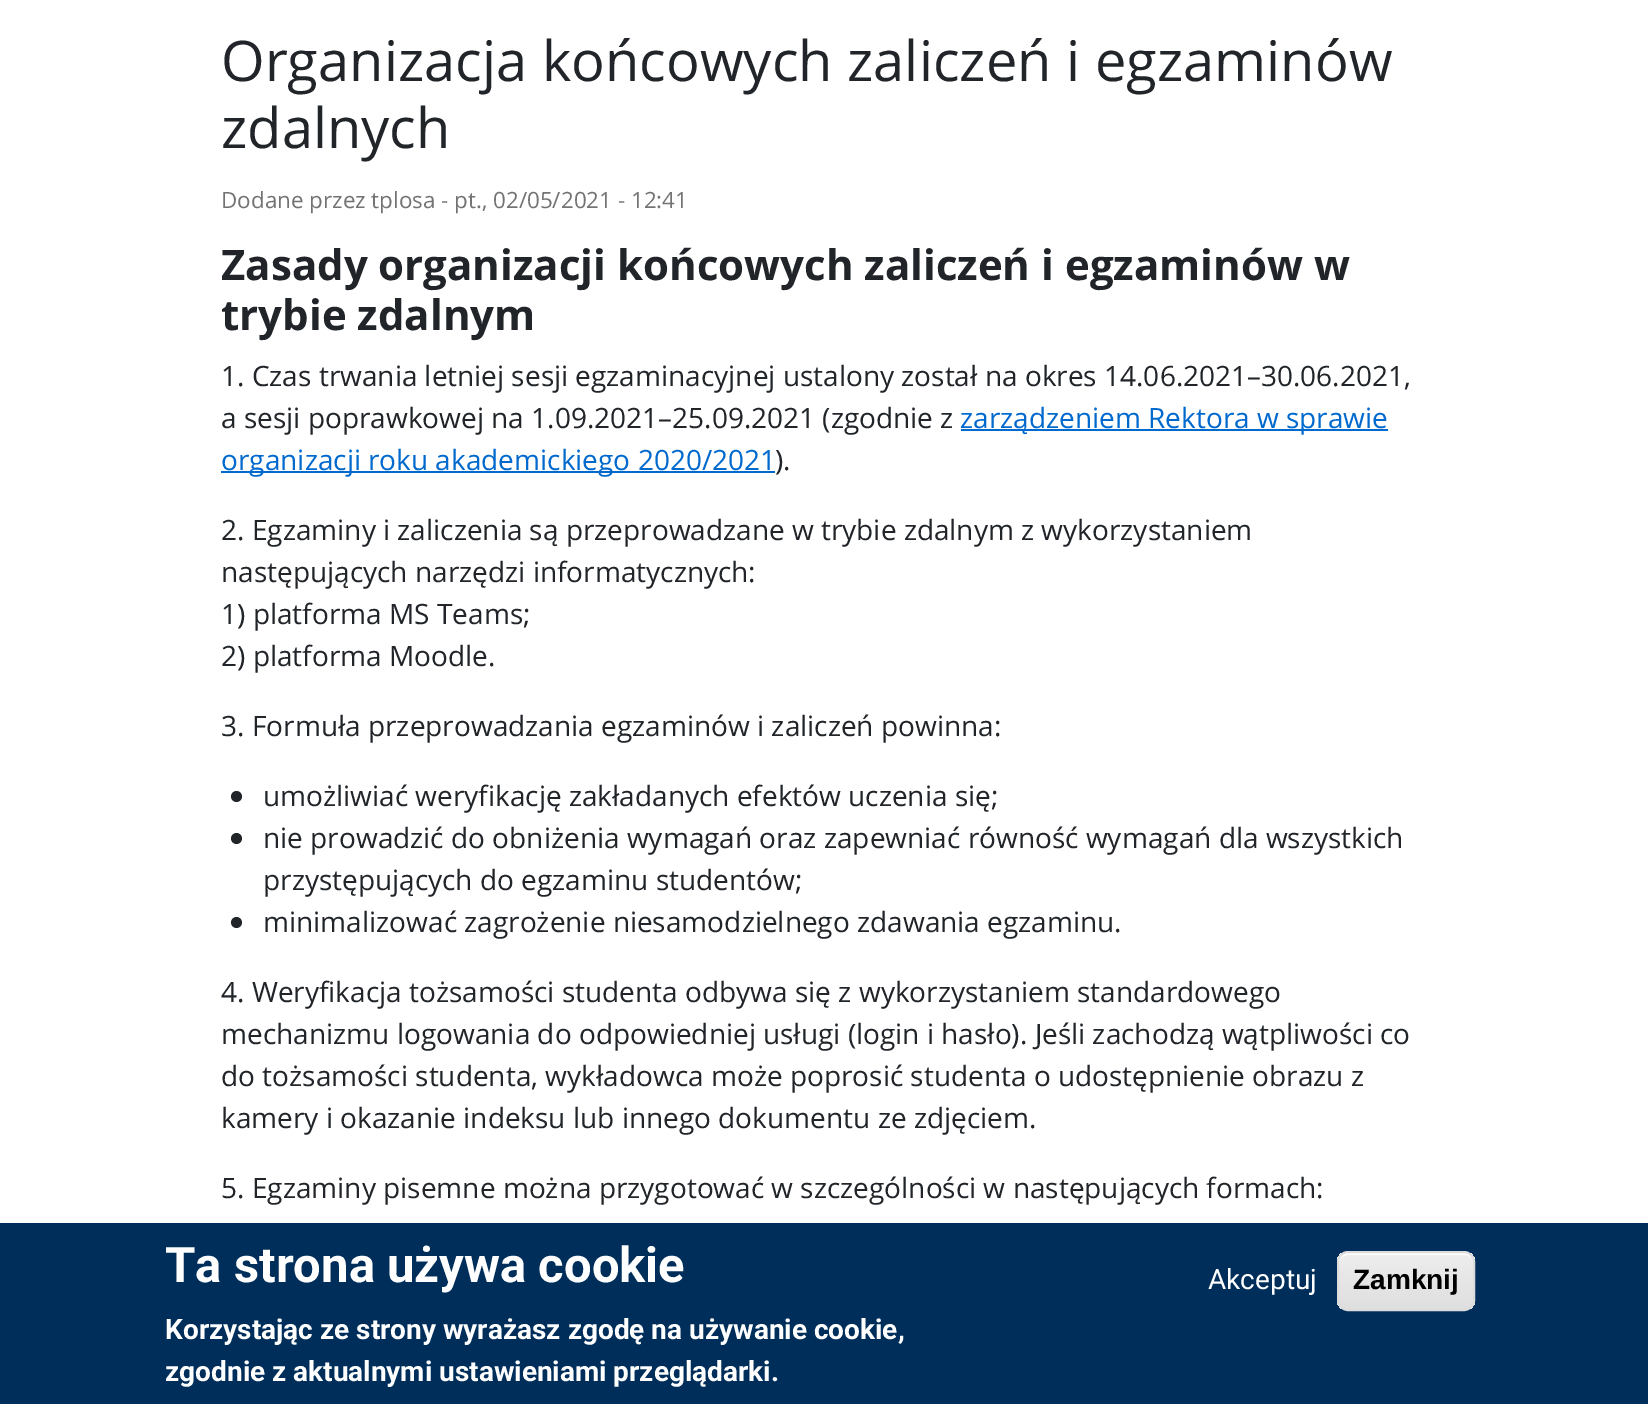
%!PS-Adobe-3.0
%%BoundingBox: 0 0 1648 1404
%%LanguageLevel: 3
%%Pages: 1
%%EndComments
%%BeginProlog
/rrect { 5 dict begin { /r /h /w /y /x } { exch def } forall
  x r add y moveto x w add y 2 copy h add r arct x w add y h add x 1 index r arct
  x y h add x y r arct x y 2 copy exch w add exch r arct closepath end } def
%%EndProlog
%%BeginSetup
<< /PageSize [1648 1404] >> setpagedevice
%%EndSetup
%%Page: 1 1
0 1404 translate 1 -1 scale
4 setmiterlimit
1 setgray
0 0 1648 1404 rectfill
0 0.412 0.808 setrgbcolor
961 429 427 2 rectfill
221 471 554 2 rectfill
0.129 0.145 0.161 setrgbcolor
newpath 236.5 796.5 5.5 0 360 arc closepath fill
newpath 236.5 838.5 5.5 0 360 arc closepath fill
newpath 236.5 922.5 5.5 0 360 arc closepath fill
0 0.18 0.353 setrgbcolor
0 1223 1648 181 rectfill
gsave
1337 1251 138 60 11 rrect clip newpath
gsave newpath 1337 1253 moveto 1475 1253 lineto 1475 1309 lineto 1337 1309 lineto closepath clip newpath
<< /ShadingType 2 /ColorSpace /DeviceRGB /Coords [1406 1253 1406 1309] /Extend [true true] /Function << /FunctionType 3 /Domain [0 1] /Functions [<< /FunctionType 2 /Domain [0 1] /C0 [0.929 0.929 0.929] /C1 [0.929 0.929 0.929] /N 1 >> << /FunctionType 2 /Domain [0 1] /C0 [0.929 0.929 0.929] /C1 [0.875 0.875 0.875] /N 1 >>] /Bounds [0.05] /Encode [0 1 0 1] >> >> shfill grestore
grestore
1 setgray
newpath 1348 1255 moveto 1465 1255 lineto 1470 1255 1474 1259 1474 1264 curveto 1474 1248 1457 1253 1446 1253 curveto 1368 1253 lineto 1356 1253 1339 1248 1339 1264 curveto 1339 1259 1343 1255 1348 1255 curveto closepath fill
0.863 setgray
2 setlinewidth
1338 1252 136 58 10 rrect stroke
/OpenSans-Regular [56 0 0 -56 0 0] selectfont
0.129 0.145 0.161 setrgbcolor
221 81 moveto (Organizacja końcowych zaliczeń i egzaminów) show
221 148 moveto (zdalnych) show
/OpenSans-Regular [22.4 0 0 -22.4 0 0] selectfont
0.451 setgray
221 208 moveto (Dodane przez tplosa - pt., 02/05/2021 - 12:41) show
/OpenSans-Bold [42 0 0 -42 0 0] selectfont
0.129 0.145 0.161 setrgbcolor
221 280 moveto (Zasady organizacji końcowych zaliczeń i egzaminów w) show
221 330 moveto (trybie zdalnym) show
/OpenSans-Regular [28 0 0 -28 0 0] selectfont
221 386 moveto (1. Czas trwania letniej sesji egzaminacyjnej ustalony został na okres 14.06.2021–30.06.2021,) show
221 428 moveto (a sesji poprawkowej na 1.09.2021–25.09.2021 \(zgodnie z) show
0 0.412 0.808 setrgbcolor
960 428 moveto (zarządzeniem Rektora w sprawie) show
221 470 moveto (organizacji roku akademickiego 2020/2021) show
0.129 0.145 0.161 setrgbcolor
775 470 moveto (\).) show
221 540 moveto (2. Egzaminy i zaliczenia są przeprowadzane w trybie zdalnym z wykorzystaniem) show
221 582 moveto (następujących narzędzi informatycznych:) show
221 624 moveto (1\) platforma MS Teams;) show
221 666 moveto (2\) platforma Moodle.) show
221 736 moveto (3. Formuła przeprowadzania egzaminów i zaliczeń powinna:) show
263 806 moveto (umożliwiać weryfikację zakładanych efektów uczenia się;) show
263 848 moveto (nie prowadzić do obniżenia wymagań oraz zapewniać równość wymagań dla wszystkich) show
263 890 moveto (przystępujących do egzaminu studentów;) show
263 932 moveto (minimalizować zagrożenie niesamodzielnego zdawania egzaminu.) show
221 1002 moveto (4. Weryfikacja tożsamości studenta odbywa się z wykorzystaniem standardowego) show
221 1044 moveto (mechanizmu logowania do odpowiedniej usługi \(login i hasło\). Jeśli zachodzą wątpliwości co) show
221 1086 moveto (do tożsamości studenta, wykładowca może poprosić studenta o udostępnienie obrazu z) show
221 1128 moveto (kamery i okazanie indeksu lub innego dokumentu ze zdjęciem.) show
221 1198 moveto (5. Egzaminy pisemne można przygotować w szczególności w następujących formach:) show
/Roboto-Bold [49 0 0 -49 0 0] selectfont
1 setgray
165 1282 moveto (Ta strona używa cookie) show
/Roboto-Bold [28 0 0 -28 0 0] selectfont
165 1339 moveto (Korzystając ze strony wyrażasz zgodę na używanie cookie,) show
165 1381 moveto (zgodnie z aktualnymi ustawieniami przeglądarki.) show
/Roboto-Regular [28 0 0 -28 0 0] selectfont
1208 1289 moveto (Akceptuj) show
/LiberationSans-Bold [28 0 0 -28 0 0] selectfont
0 setgray
1353 1289 moveto (Zamknij) show
showpage
%%EOF
